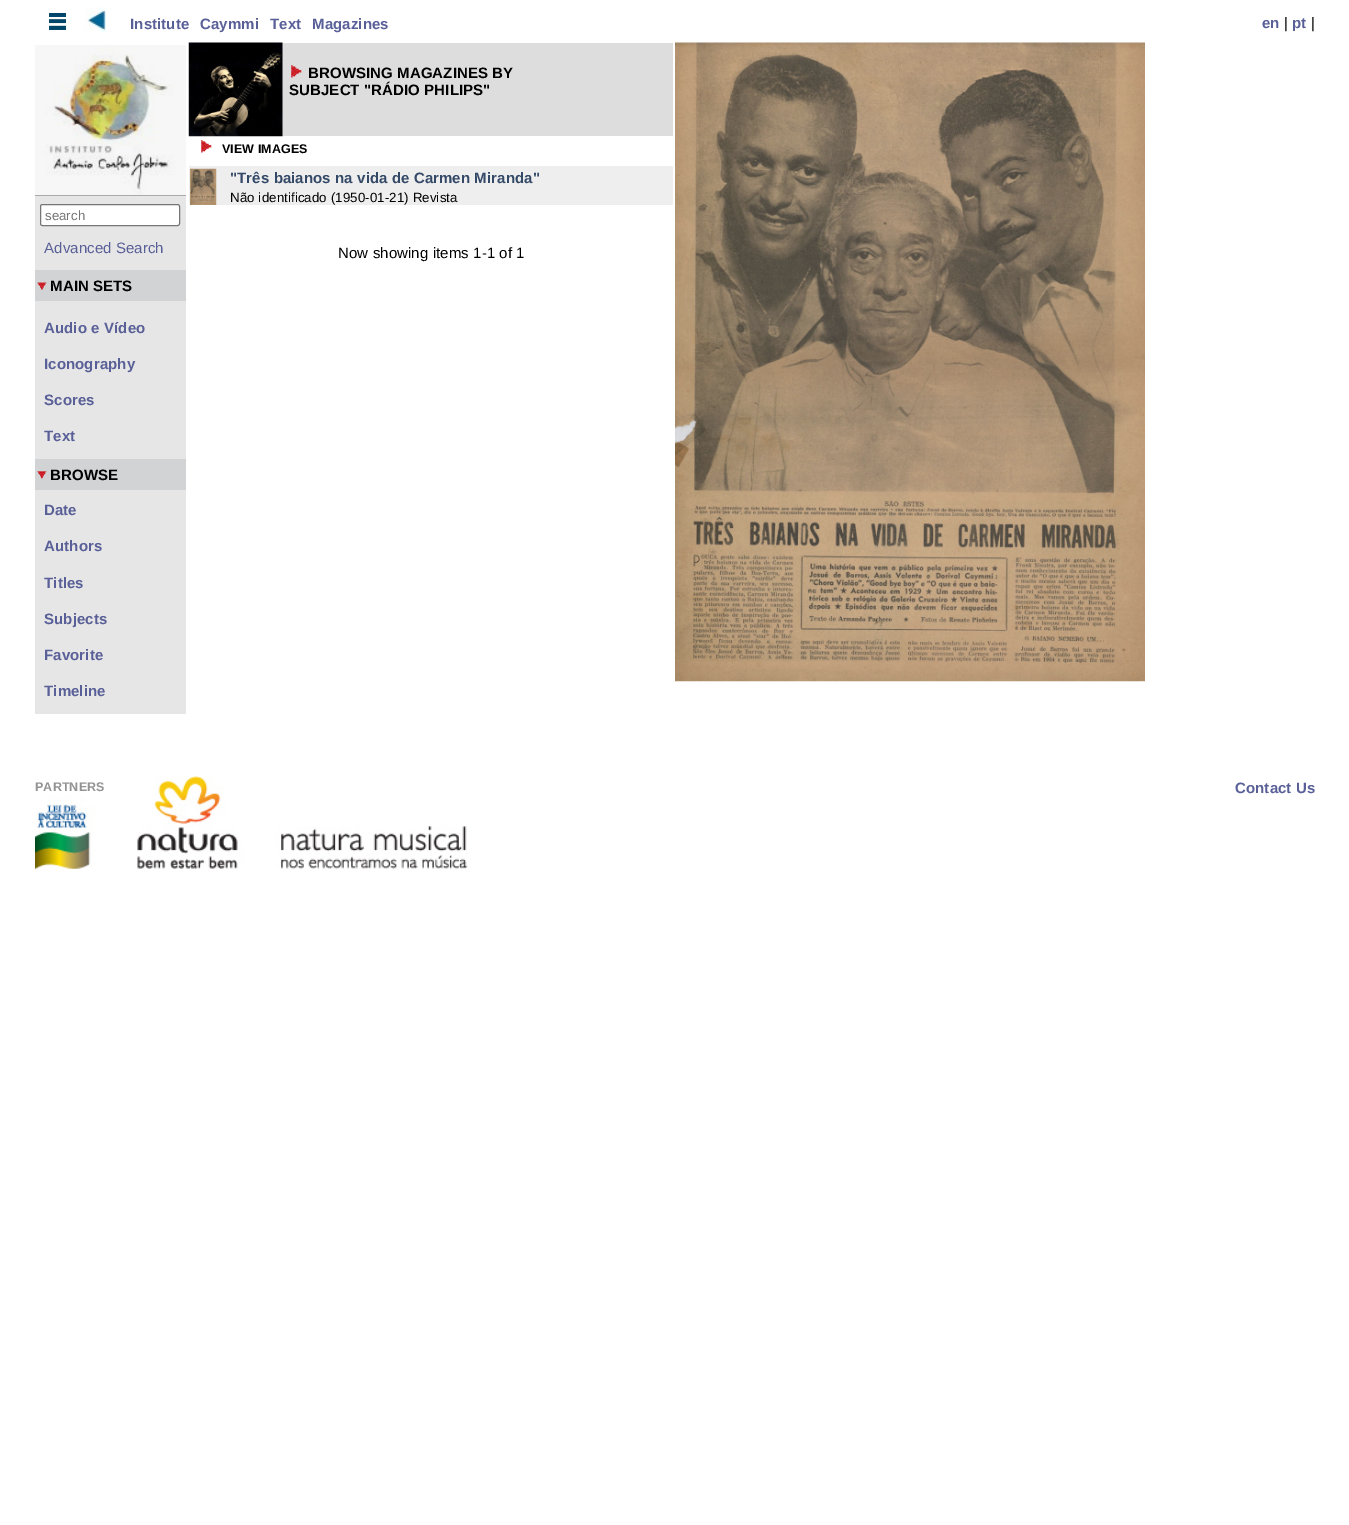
%!PS-Adobe-3.0
%%BoundingBox: 0 0 1349 1525
%%LanguageLevel: 3
%%Pages: 1
%%EndComments
%%BeginProlog
/rrect { 5 dict begin { /r /h /w /y /x } { exch def } forall
  x r add y moveto x w add y 2 copy h add r arct x w add y h add x 1 index r arct
  x y h add x y r arct x y 2 copy exch w add exch r arct closepath end } def
/drawimage { 5 dict begin { /h /w /y /x /name } { exch def } forall
  gsave x y translate w h scale
  w h 8 [w 0 0 h 0 0] name (r) file false 3 colorimage grestore end } def
%%EndProlog
%%BeginSetup
<< /PageSize [1349 1525] >> setpagedevice
%%EndSetup
%%Page: 1 1
0 1525 translate 1 -1 scale
4 setmiterlimit
1 setgray
0 0 1349 1525 rectfill
(images/1.raw) 49 12 18 18 drawimage
(images/2.raw) 85 7 22 26 drawimage
0.867 setgray
282 43 391 93 rectfill
(images/3.raw) 188 42 95 95 drawimage
(images/4.raw) 675 42 470 640 drawimage
(images/5.raw) 291 65 11 13 drawimage
(images/6.raw) 201 140 11 13 drawimage
0.933 setgray
189 166 484 39 rectfill
(images/7.raw) 190 168 27 37 drawimage
0.902 setgray
35 196 151 518 rectfill
0.667 setgray
35 45 151 151 rectfill
(images/8.raw) 35 45 151 150 drawimage
1 setgray
40.5 204.5 139 21 2 rrect gsave fill grestore
0.463 setgray
stroke
0.82 0.827 0.831 setrgbcolor
35 270 151 31 rectfill
(images/9.raw) 37 282 10 8 drawimage
35 459 151 31 rectfill
(images/10.raw) 37 471 10 8 drawimage
(images/11.raw) 35 776 433 93 drawimage
/LiberationSans-Bold [15 0 0 -15 0 0] selectfont
0.349 0.373 0.592 setrgbcolor
130 29 moveto 0.1 0 (Institute) ashow
200 29 moveto 0.1 0 (Caymmi) ashow
270 29 moveto 0.1 0 (Text) ashow
312 29 moveto 0.1 0 (Magazines) ashow
1262 28 moveto 0.1 0 (en) ashow
/LiberationSans-Regular [15 0 0 -15 0 0] selectfont
0 setgray
1284 28 moveto 0.1 0 (|) ashow
/LiberationSans-Bold [15 0 0 -15 0 0] selectfont
0.349 0.373 0.592 setrgbcolor
1292 28 moveto 0.1 0 (pt) ashow
/LiberationSans-Regular [15 0 0 -15 0 0] selectfont
0 setgray
1311 28 moveto 0.1 0 (|) ashow
/LiberationSans-Bold [15 0 0 -15 0 0] selectfont
308 78 moveto 0.1 0 (BROWSING MAGAZINES BY) ashow
289 95 moveto 0.1 0 (SUBJECT "RÁDIO PHILIPS") ashow
/LiberationSans-Bold [12.5 0 0 -12.5 0 0] selectfont
222 153 moveto 0.1 0 (VIEW IMAGES) ashow
/LiberationSans-Bold [15 0 0 -15 0 0] selectfont
0.204 0.286 0.404 setrgbcolor
230 183 moveto 0.1 0 ("Três baianos na vida de Carmen Miranda") ashow
/LiberationSans-Regular [13.3 0 0 -13.3 0 0] selectfont
0 setgray
230 202 moveto 0.1 0 (Não identificado \(1950-01-21\) Revista) ashow
/LiberationSans-Regular [15 0 0 -15 0 0] selectfont
338 258 moveto 0.1 0 (Now showing items 1-1 of 1) ashow
/LiberationSans-Regular [13.3 0 0 -13.3 0 0] selectfont
0.459 setgray
45 220 moveto (search) show
/LiberationSans-Regular [15 0 0 -15 0 0] selectfont
0.349 0.373 0.592 setrgbcolor
44 253 moveto 0.1 0 (Advanced Search) ashow
/LiberationSans-Bold [15 0 0 -15 0 0] selectfont
0 setgray
50 291 moveto 0.1 0 (MAIN SETS) ashow
0.349 0.373 0.592 setrgbcolor
44 333 moveto 0.1 0 (Audio e Vídeo) ashow
44 369 moveto 0.1 0 (Iconography) ashow
44 405 moveto 0.1 0 (Scores) ashow
44 441 moveto 0.1 0 (Text) ashow
0 setgray
50 480 moveto 0.1 0 (BROWSE) ashow
0.349 0.373 0.592 setrgbcolor
44 515 moveto 0.1 0 (Date) ashow
44 551 moveto 0.1 0 (Authors) ashow
44 588 moveto 0.1 0 (Titles) ashow
44 624 moveto 0.1 0 (Subjects) ashow
44 660 moveto 0.1 0 (Favorite) ashow
44 696 moveto 0.1 0 (Timeline) ashow
/LiberationSans-Bold [12.5 0 0 -12.5 0 0] selectfont
0.576 setgray
35 791 moveto 0.1 0 (PARTNERS) ashow
/LiberationSans-Bold [15 0 0 -15 0 0] selectfont
0.349 0.373 0.592 setrgbcolor
1235 793 moveto 0.1 0 (Contact Us) ashow
showpage
%%EOF
